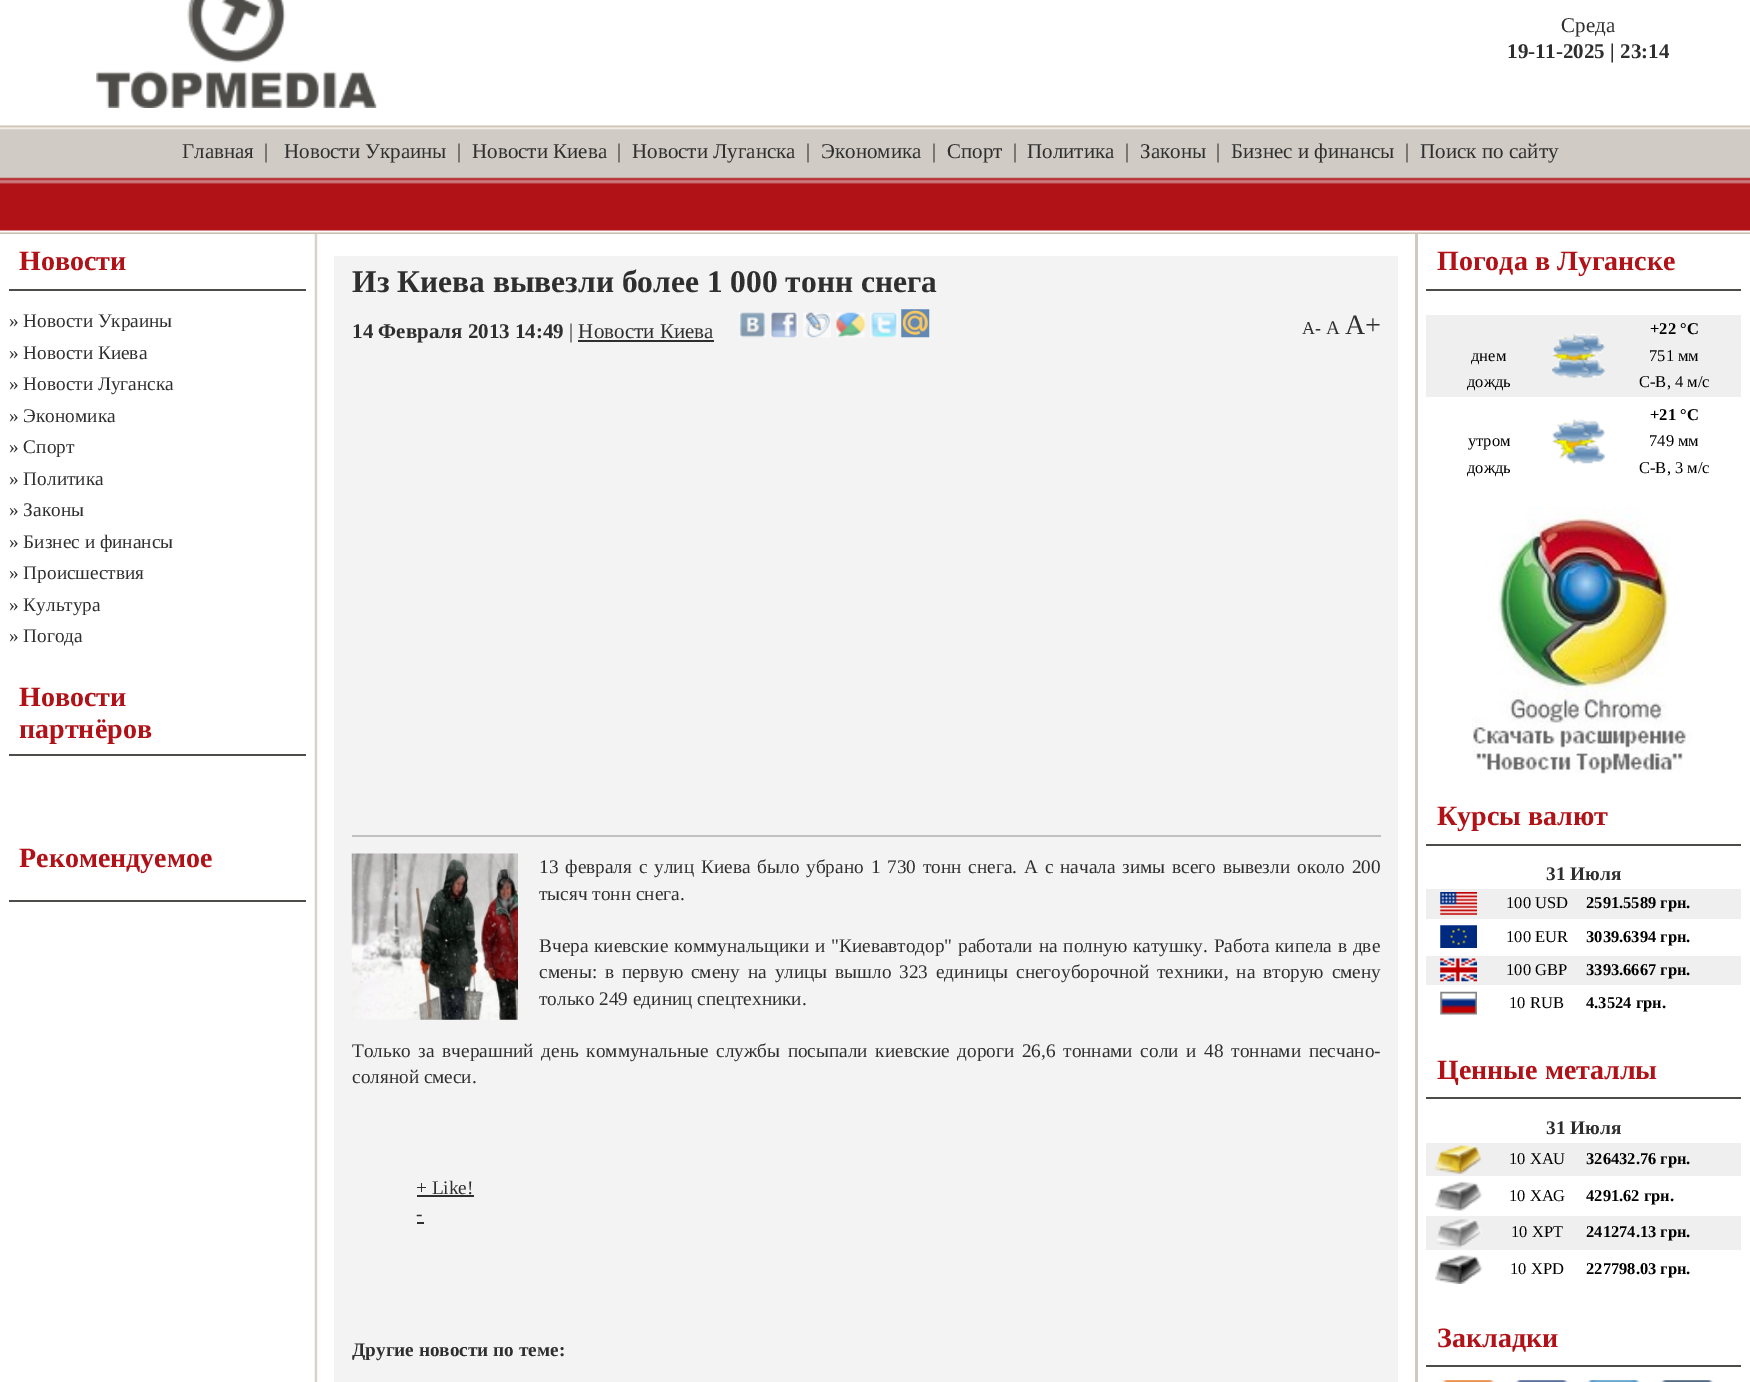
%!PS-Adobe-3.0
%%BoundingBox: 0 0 1750 1382
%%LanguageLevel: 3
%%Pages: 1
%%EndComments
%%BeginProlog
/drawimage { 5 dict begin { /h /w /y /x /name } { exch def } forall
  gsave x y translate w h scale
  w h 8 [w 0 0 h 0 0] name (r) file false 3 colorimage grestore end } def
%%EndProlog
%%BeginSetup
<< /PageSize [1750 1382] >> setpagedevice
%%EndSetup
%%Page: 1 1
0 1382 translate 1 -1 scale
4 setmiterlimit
1 setgray
0 0 1750 1382 rectfill
(images/1.raw) 0 125 1750 109 drawimage
(images/2.raw) 96 0 281 108 drawimage
0.302 0.298 0.282 setrgbcolor
9 289 297 2 rectfill
9 754 297 2 rectfill
9 900 297 2 rectfill
(images/3.raw) 314 234 4 1148 drawimage
0.953 setgray
334 256 1064 1126 rectfill
0.184 setgray
578 340 136 2 rectfill
(images/4.raw) 739 312 27 26 drawimage
(images/5.raw) 770 312 28 26 drawimage
(images/6.raw) 803 312 28 26 drawimage
(images/7.raw) 836 312 29 26 drawimage
(images/8.raw) 870 312 28 26 drawimage
(images/9.raw) 901 309 29 29 drawimage
0.753 setgray
352 835 1029 2 rectfill
(images/10.raw) 351 853 167 167 drawimage
0.184 setgray
417 1195 57 2 rectfill
417 1222 7 2 rectfill
0.824 0.784 0.733 setrgbcolor
1415 234 3 1148 rectfill
0.302 0.298 0.282 setrgbcolor
1426 289 315 2 rectfill
0.937 setgray
1426 315 315 82 rectfill
(images/11.raw) 1552 333 53 45 drawimage
(images/12.raw) 1552 419 53 45 drawimage
(images/13.raw) 1472 507 220 267 drawimage
0.302 0.298 0.282 setrgbcolor
1426 844 315 2 rectfill
0.937 setgray
1426 889 315 30 rectfill
(images/14.raw) 1440 892 37 23 drawimage
(images/15.raw) 1440 925 37 23 drawimage
1426 956 315 29 rectfill
(images/16.raw) 1440 958 37 24 drawimage
(images/17.raw) 1440 991 37 24 drawimage
0.302 0.298 0.282 setrgbcolor
1426 1097 315 2 rectfill
0.937 setgray
1426 1143 315 33 rectfill
(images/18.raw) 1435 1144 47 30 drawimage
(images/19.raw) 1435 1181 48 30 drawimage
1426 1216 315 34 rectfill
(images/20.raw) 1436 1219 46 29 drawimage
(images/21.raw) 1435 1254 48 30 drawimage
0.302 0.298 0.282 setrgbcolor
1426 1365 315 2 rectfill
(images/22.raw) 1442 1380 53 2 drawimage
(images/23.raw) 1515 1380 54 2 drawimage
(images/24.raw) 1587 1380 53 2 drawimage
(images/25.raw) 1660 1380 54 2 drawimage
/LiberationSerif-Regular [21 0 0 -21 0 0] selectfont
0.184 setgray
1561 32 moveto (Среда) show
/LiberationSerif-Bold [21 0 0 -21 0 0] selectfont
1507 58 moveto (19-11-2025 | 23:14) show
/LiberationSerif-Regular [21 0 0 -21 0 0] selectfont
182 158 moveto (Главная) show
264 158 moveto (|) show
284 158 moveto (Новости Украины) show
457 158 moveto (|) show
472 158 moveto (Новости Киева) show
617 158 moveto (|) show
632 158 moveto (Новости Луганска) show
806 158 moveto (|) show
821 158 moveto (Экономика) show
932 158 moveto (|) show
947 158 moveto (Спорт) show
1013 158 moveto (|) show
1027 158 moveto (Политика) show
1125 158 moveto (|) show
1140 158 moveto (Законы) show
1216 158 moveto (|) show
1231 158 moveto (Бизнес и финансы) show
1405 158 moveto (|) show
1420 158 moveto (Поиск по сайту) show
/LiberationSerif-Bold [28 0 0 -28 0 0] selectfont
0.694 0.071 0.094 setrgbcolor
19 270 moveto (Новости) show
/LiberationSerif-Regular [19.25 0 0 -19.25 0 0] selectfont
0.184 setgray
9 327 moveto (» Новости Украины) show
9 359 moveto (» Новости Киева) show
9 390 moveto (» Новости Луганска) show
9 422 moveto (» Экономика) show
9 453 moveto (» Спорт) show
9 485 moveto (» Политика) show
9 516 moveto (» Законы) show
9 548 moveto (» Бизнес и финансы) show
9 579 moveto (» Происшествия) show
9 611 moveto (» Культура) show
9 642 moveto (» Погода) show
/LiberationSerif-Bold [28 0 0 -28 0 0] selectfont
0.694 0.071 0.094 setrgbcolor
19 706 moveto (Новости) show
19 738 moveto (партнёров) show
19 867 moveto (Рекомендуемое) show
/LiberationSerif-Bold [31.5 0 0 -31.5 0 0] selectfont
0.184 setgray
352 292 moveto (Из Киева вывезли более 1 000 тонн снега) show
/LiberationSerif-Bold [21 0 0 -21 0 0] selectfont
352 338 moveto (14 Февраля 2013 14:49) show
/LiberationSerif-Regular [21 0 0 -21 0 0] selectfont
569 338 moveto (| Новости Киева) show
/LiberationSerif-Regular [18 0 0 -18 0 0] selectfont
1302 334 moveto (A-) show
/LiberationSerif-Regular [19.25 0 0 -19.25 0 0] selectfont
1326 334 moveto (A) show
/LiberationSerif-Regular [28 0 0 -28 0 0] selectfont
1345 334 moveto (A+) show
/LiberationSerif-Regular [19.25 0 0 -19.25 0 0] selectfont
539 873 moveto 2.1 0 32 (13 февраля с улиц Киева было убрано 1 730 тонн снега. А с начала зимы всего вывезли около 200) widthshow
539 900 moveto (тысяч тонн снега.) show
539 952 moveto 1.1 0 32 (Вчера киевские коммунальщики и "Киевавтодор" работали на полную катушку. Работа кипела в две) widthshow
539 978 moveto 3 0 32 (смены: в первую смену на улицы вышло 323 единицы снегоуборочной техники, на вторую смену) widthshow
539 1005 moveto (только 249 единиц спецтехники.) show
352 1057 moveto 2.9 0 32 (Только за вчерашний день коммунальные службы посыпали киевские дороги 26,6 тоннами соли и 48 тоннами песчано-) widthshow
352 1083 moveto (соляной смеси.) show
416 1194 moveto (+ Like!) show
416 1220 moveto (-) show
/LiberationSerif-Bold [19.25 0 0 -19.25 0 0] selectfont
352 1356 moveto (Другие новости по теме:) show
/LiberationSerif-Bold [28 0 0 -28 0 0] selectfont
0.694 0.071 0.094 setrgbcolor
1437 270 moveto (Погода в Луганске) show
/LiberationSerif-Regular [16.5 0 0 -16.5 0 0] selectfont
0 setgray
1471 361 moveto (днем) show
1467 387 moveto (дождь) show
/LiberationSerif-Bold [16.5 0 0 -16.5 0 0] selectfont
1650 334 moveto (+22 °C) show
/LiberationSerif-Regular [16.5 0 0 -16.5 0 0] selectfont
1649 361 moveto (751 мм) show
1639 387 moveto (С-В, 4 м/с) show
1468 446 moveto (утром) show
1467 473 moveto (дождь) show
/LiberationSerif-Bold [16.5 0 0 -16.5 0 0] selectfont
1650 420 moveto (+21 °C) show
/LiberationSerif-Regular [16.5 0 0 -16.5 0 0] selectfont
1649 446 moveto (749 мм) show
1639 473 moveto (С-В, 3 м/с) show
/LiberationSerif-Bold [28 0 0 -28 0 0] selectfont
0.694 0.071 0.094 setrgbcolor
1437 825 moveto (Курсы валют) show
/LiberationSerif-Bold [19.25 0 0 -19.25 0 0] selectfont
0.184 setgray
1546 880 moveto (31 Июля) show
/LiberationSerif-Regular [16.5 0 0 -16.5 0 0] selectfont
0 setgray
1506 908 moveto (100 USD) show
/LiberationSerif-Bold [16.5 0 0 -16.5 0 0] selectfont
1586 908 moveto (2591.5589 грн.) show
/LiberationSerif-Regular [16.5 0 0 -16.5 0 0] selectfont
1506 942 moveto (100 EUR) show
/LiberationSerif-Bold [16.5 0 0 -16.5 0 0] selectfont
1586 942 moveto (3039.6394 грн.) show
/LiberationSerif-Regular [16.5 0 0 -16.5 0 0] selectfont
1506 975 moveto (100 GBP) show
/LiberationSerif-Bold [16.5 0 0 -16.5 0 0] selectfont
1586 975 moveto (3393.6667 грн.) show
/LiberationSerif-Regular [16.5 0 0 -16.5 0 0] selectfont
1509 1008 moveto (10 RUB) show
/LiberationSerif-Bold [16.5 0 0 -16.5 0 0] selectfont
1586 1008 moveto (4.3524 грн.) show
/LiberationSerif-Bold [28 0 0 -28 0 0] selectfont
0.694 0.071 0.094 setrgbcolor
1437 1079 moveto (Ценные металлы) show
/LiberationSerif-Bold [19.25 0 0 -19.25 0 0] selectfont
0.184 setgray
1546 1134 moveto (31 Июля) show
/LiberationSerif-Regular [16.5 0 0 -16.5 0 0] selectfont
0 setgray
1509 1164 moveto (10 XAU) show
/LiberationSerif-Bold [16.5 0 0 -16.5 0 0] selectfont
1586 1164 moveto (326432.76 грн.) show
/LiberationSerif-Regular [16.5 0 0 -16.5 0 0] selectfont
1509 1201 moveto (10 XAG) show
/LiberationSerif-Bold [16.5 0 0 -16.5 0 0] selectfont
1586 1201 moveto (4291.62 грн.) show
/LiberationSerif-Regular [16.5 0 0 -16.5 0 0] selectfont
1511 1237 moveto (10 XPT) show
/LiberationSerif-Bold [16.5 0 0 -16.5 0 0] selectfont
1586 1237 moveto (241274.13 грн.) show
/LiberationSerif-Regular [16.5 0 0 -16.5 0 0] selectfont
1510 1274 moveto (10 XPD) show
/LiberationSerif-Bold [16.5 0 0 -16.5 0 0] selectfont
1586 1274 moveto (227798.03 грн.) show
/LiberationSerif-Bold [28 0 0 -28 0 0] selectfont
0.694 0.071 0.094 setrgbcolor
1437 1347 moveto (Закладки) show
showpage
%%EOF
